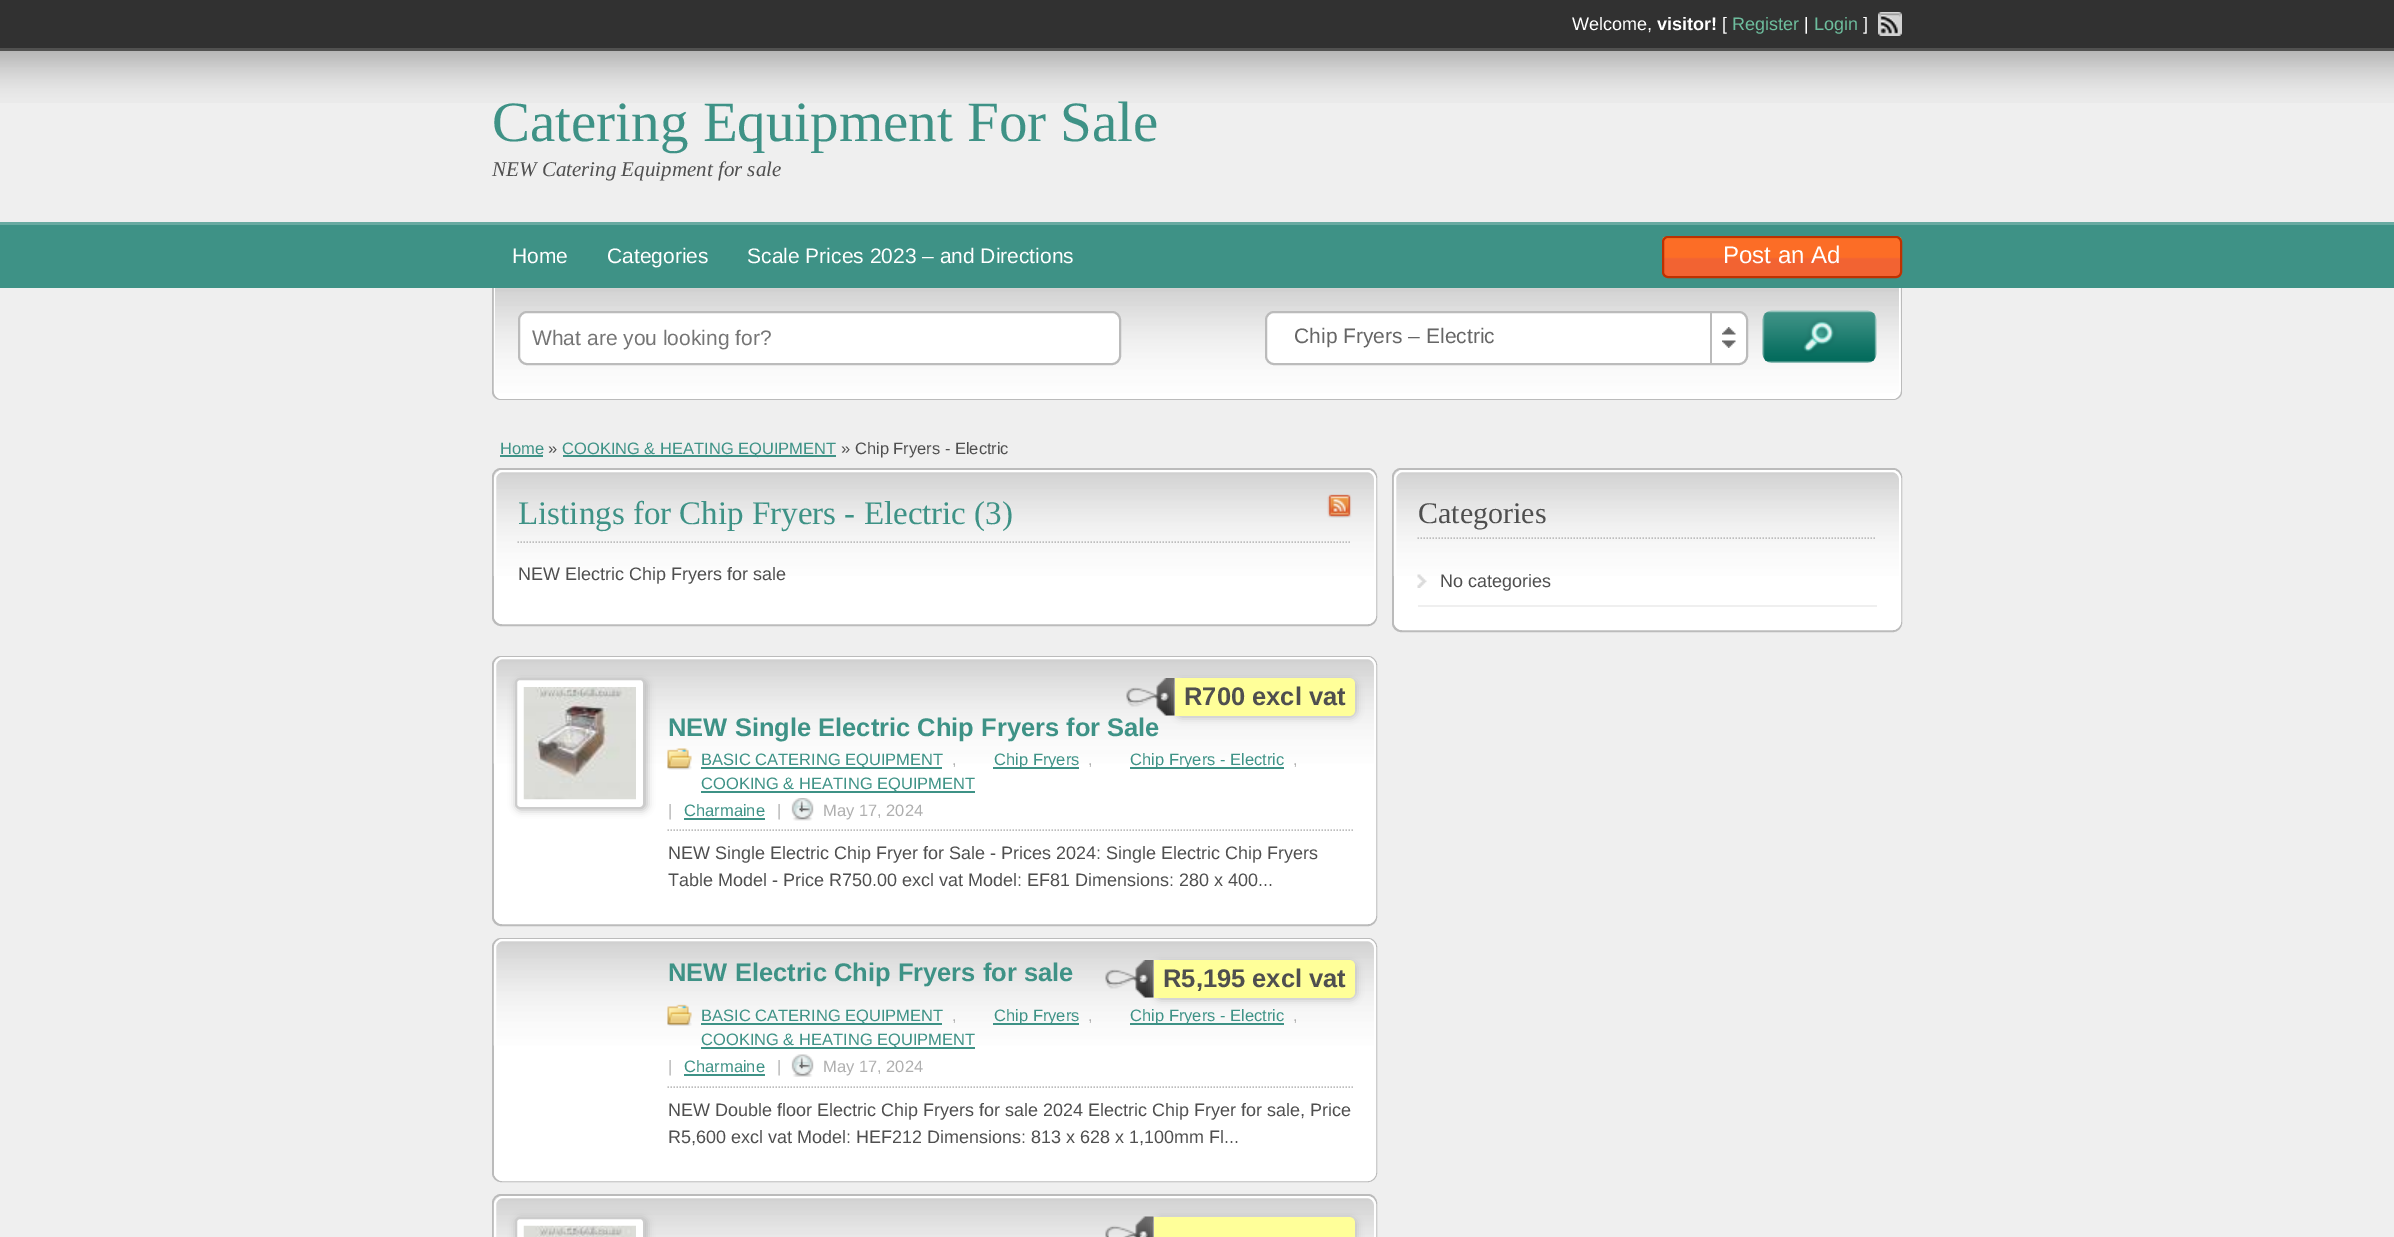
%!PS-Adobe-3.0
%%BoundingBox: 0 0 2394 1237
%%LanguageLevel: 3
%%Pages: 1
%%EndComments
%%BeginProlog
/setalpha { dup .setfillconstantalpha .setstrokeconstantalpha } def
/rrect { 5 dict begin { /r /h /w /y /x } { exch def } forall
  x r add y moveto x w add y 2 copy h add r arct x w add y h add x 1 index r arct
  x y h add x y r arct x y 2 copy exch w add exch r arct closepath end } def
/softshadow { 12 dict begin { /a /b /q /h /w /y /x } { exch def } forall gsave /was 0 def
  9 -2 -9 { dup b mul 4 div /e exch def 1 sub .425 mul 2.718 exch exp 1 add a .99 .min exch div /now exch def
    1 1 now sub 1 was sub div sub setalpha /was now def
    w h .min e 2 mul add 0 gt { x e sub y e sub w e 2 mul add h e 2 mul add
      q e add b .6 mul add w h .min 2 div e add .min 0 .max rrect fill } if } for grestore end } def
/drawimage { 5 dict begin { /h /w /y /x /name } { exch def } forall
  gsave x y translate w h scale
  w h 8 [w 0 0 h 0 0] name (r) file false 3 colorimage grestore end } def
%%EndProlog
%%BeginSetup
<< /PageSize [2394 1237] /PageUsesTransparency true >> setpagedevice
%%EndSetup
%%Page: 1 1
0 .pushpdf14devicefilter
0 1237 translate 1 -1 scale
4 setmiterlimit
0.937 setgray
0 0 2394 1237 rectfill
0.192 setgray
0 0 2394 48 rectfill
0.318 0.318 0.314 setrgbcolor
0 48 2394 3 rectfill
(images/1.raw) 1878 12 24 24 drawimage
(images/2.raw) 0 51 2394 52 drawimage
0.243 0.573 0.525 setrgbcolor
0 225 2394 63 rectfill
0.408 0.667 0.631 setrgbcolor
0 222 2394 3 rectfill
(images/3.raw) 1662 237 240 41 drawimage
0.745 0.192 0.004 setrgbcolor
2 setlinewidth
1663 237 238 40 5 rrect stroke
0.733 setgray
newpath 492 288 moveto 1902 288 lineto 1902 392 lineto 1902 396 1898 400 1893 400 curveto 501 400 lineto 496 400 492 396 492 392 curveto closepath 494 288 moveto 1900 288 lineto 1900 392 lineto 1900 396 1897 399 1893 399 curveto 501 399 lineto 497 399 494 396 494 392 curveto closepath eofill
1 setgray
newpath 494 288 moveto 1901 288 lineto 1901 390 lineto 1901 395 1897 399 1892 399 curveto 503 399 lineto 498 399 494 395 494 390 curveto closepath fill
(images/4.raw) 493 288 1408 105 drawimage
newpath 494 288 moveto 1900 288 lineto 1900 390 lineto 1900 395 1896 399 1892 399 curveto 502 399 lineto 498 399 494 395 494 390 curveto closepath 495 288 moveto 1899 288 lineto 1899 390 lineto 1899 394 1896 398 1892 398 curveto 502 398 lineto 498 398 495 394 495 390 curveto closepath eofill
519 312 601 52 8 rrect gsave fill grestore
0.733 setgray
stroke
1 setgray
1266 312 481 52 8 rrect gsave fill grestore
0.733 setgray
stroke
(images/5.raw) 1722 327 14 21 drawimage
1710 312 2 51 rectfill
(images/6.raw) 1762 310 115 53 drawimage
0.243 0.573 0.525 setrgbcolor
500 455 43 2 rectfill
563 455 273 2 rectfill
0.733 setgray
493 469 883 156 8 rrect stroke
1 setgray
494 470 882 154 9 rrect fill
(images/7.raw) 493 471 883 105 drawimage
495 471 880 152 8 rrect stroke
0.741 setgray
1.5 setlinewidth
[1.5 1.5] 0 setdash
newpath 517.5 542 moveto 1351.5 542 lineto stroke
(images/8.raw) 1327 494 25 24 drawimage
0.733 setgray
2 setlinewidth
[] 0 setdash
493 657 883 268 8 rrect stroke
1 setgray
494 657 882 267 9 rrect fill
(images/9.raw) 493 658 883 106 drawimage
495 658 880 265 8 rrect stroke
0.718 setgray
516 680 131 130 5 4 1 softshadow
1 setgray
516 679 128 129 4 rrect gsave fill grestore
0.8 setgray
stroke
(images/10.raw) 523 687 113 113 drawimage
(images/11.raw) 1126 678 49 38 drawimage
0.718 setgray
1176 680 180 37 6 4 1 softshadow
1 1 0.6 setrgbcolor
newpath 1175 678 moveto 1349 678 lineto 1352.5 678 1355 680.5 1355 684 curveto 1355 710 lineto 1355 713.5 1352.5 716 1349 716 curveto 1175 716 lineto closepath fill
0.741 setgray
1.5 setlinewidth
[1.5 1.5] 0 setdash
newpath 667.5 830 moveto 1354.5 830 lineto stroke
(images/12.raw) 667 748 25 22 drawimage
0.243 0.573 0.525 setrgbcolor
701 767 241 2 rectfill
993 767 86 2 rectfill
1130 767 154 2 rectfill
701 791 274 2 rectfill
684 818 81 2 rectfill
(images/13.raw) 791 798 23 23 drawimage
0.733 setgray
2 setlinewidth
[] 0 setdash
493 939 883 242 8 rrect stroke
1 setgray
494 939 882 242 9 rrect fill
(images/9.raw) 493 940 883 106 drawimage
495 940 880 240 8 rrect stroke
(images/11.raw) 1105 960 49 38 drawimage
0.718 setgray
1155 962 201 37 6 4 1 softshadow
1 1 0.6 setrgbcolor
newpath 1154 960 moveto 1349 960 lineto 1352.5 960 1355 962.5 1355 966 curveto 1355 992 lineto 1355 995.5 1352.5 998 1349 998 curveto 1154 998 lineto closepath fill
0.741 setgray
1.5 setlinewidth
[1.5 1.5] 0 setdash
newpath 667.5 1087 moveto 1354.5 1087 lineto stroke
(images/14.raw) 667 1004 25 22 drawimage
0.243 0.573 0.525 setrgbcolor
701 1023 241 2 rectfill
993 1023 86 2 rectfill
1130 1023 154 2 rectfill
701 1047 274 2 rectfill
684 1074 81 2 rectfill
(images/15.raw) 791 1054 23 23 drawimage
0.733 setgray
2 setlinewidth
[] 0 setdash
493 1195 883 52 8 rrect stroke
(images/16.raw) 493 1197 883 40 drawimage
1 setgray
495 1197 880 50 8 rrect stroke
0.718 setgray
516 1218 131 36 5 4 1 softshadow
1 setgray
516 1218 128 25 4 rrect gsave fill grestore
0.8 setgray
stroke
(images/17.raw) 523 1225 113 12 drawimage
(images/18.raw) 1105 1216 49 21 drawimage
0.718 setgray
1155 1218 201 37 6 4 1 softshadow
1 1 0.6 setrgbcolor
newpath 1154 1217 moveto 1349 1217 lineto 1352.5 1217 1355 1219.5 1355 1223 curveto 1355 1237 lineto 1355 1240.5 1352.5 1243 1349 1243 curveto 1154 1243 lineto closepath fill
0.733 setgray
1393 469 508 162 8 rrect stroke
1 setgray
1394 470 507 160 9 rrect fill
(images/19.raw) 1393 471 508 105 drawimage
1395 471 505 158 8 rrect stroke
0.741 setgray
1.5 setlinewidth
[1.5 1.5] 0 setdash
newpath 1417.5 538 moveto 1876.5 538 lineto stroke
(images/20.raw) 1417 574 10 14 drawimage
0.937 setgray
1418 605 459 2 rectfill
/LiberationSans-Regular [18 0 0 -18 0 0] selectfont
1 setgray
1572 30 moveto (Welcome,) show
/LiberationSans-Bold [18 0 0 -18 0 0] selectfont
1657 30 moveto (visitor!) show
/LiberationSans-Regular [18 0 0 -18 0 0] selectfont
1722 30 moveto ([) show
0.427 0.741 0.616 setrgbcolor
1732 30 moveto (Register) show
1 setgray
1804 30 moveto (|) show
0.427 0.741 0.616 setrgbcolor
1814 30 moveto (Login) show
1 setgray
1863 30 moveto (]) show
/LiberationSerif-Regular [57 0 0 -57 0 0] selectfont
0.243 0.573 0.525 setrgbcolor
492 141 moveto (Catering Equipment For Sale) show
/LiberationSerif-Italic [21 0 0 -21 0 0] selectfont
0.31 setgray
492 176 moveto (NEW Catering Equipment for sale) show
/LiberationSans-Regular [21 0 0 -21 0 0] selectfont
1 setgray
512 263 moveto (Home) show
607 263 moveto (Categories) show
747 263 moveto (Scale Prices 2023 – and Directions) show
/LiberationSans-Regular [24 0 0 -24 0 0] selectfont
1723 263 moveto (Post an Ad) show
/LiberationSans-Regular [21 0 0 -21 0 0] selectfont
0.459 setgray
532 345 moveto (What are you looking for?) show
0.4 setgray
1294 343 moveto (Chip Fryers – Electric) show
/LiberationSans-Regular [16.5 0 0 -16.5 0 0] selectfont
0.243 0.573 0.525 setrgbcolor
500 454 moveto (Home) show
0.31 setgray
548 454 moveto (») show
0.243 0.573 0.525 setrgbcolor
562 454 moveto (COOKING & HEATING EQUIPMENT) show
0.31 setgray
841 454 moveto (» Chip Fryers - Electric) show
/LiberationSerif-Regular [33 0 0 -33 0 0] selectfont
0.243 0.573 0.525 setrgbcolor
518 524 moveto (Listings for Chip Fryers - Electric \(3\)) show
/LiberationSans-Regular [18 0 0 -18 0 0] selectfont
0.31 setgray
518 580 moveto (NEW Electric Chip Fryers for sale) show
/LiberationSans-Bold [25.5 0 0 -25.5 0 0] selectfont
1184 705 moveto (R700 excl vat) show
0.243 0.573 0.525 setrgbcolor
668 736 moveto (NEW Single Electric Chip Fryers for Sale) show
/LiberationSans-Regular [16.5 0 0 -16.5 0 0] selectfont
701 765 moveto (BASIC CATERING EQUIPMENT) show
0.686 setgray
952 765 moveto (,) show
0.243 0.573 0.525 setrgbcolor
994 765 moveto (Chip Fryers) show
0.686 setgray
1088 765 moveto (,) show
0.243 0.573 0.525 setrgbcolor
1130 765 moveto (Chip Fryers - Electric) show
0.686 setgray
1293 765 moveto (,) show
0.243 0.573 0.525 setrgbcolor
701 789 moveto (COOKING & HEATING EQUIPMENT) show
0.686 setgray
668 816 moveto (|) show
0.243 0.573 0.525 setrgbcolor
684 816 moveto (Charmaine) show
0.686 setgray
777 816 moveto (|) show
823 816 moveto (May 17, 2024) show
/LiberationSans-Regular [18 0 0 -18 0 0] selectfont
0.31 setgray
668 859 moveto (NEW Single Electric Chip Fryer for Sale - Prices 2024: Single Electric Chip Fryers) show
668 886 moveto (Table Model - Price R750.00 excl vat Model: EF81 Dimensions: 280 x 400...) show
/LiberationSans-Bold [25.5 0 0 -25.5 0 0] selectfont
0.243 0.573 0.525 setrgbcolor
668 981 moveto (NEW Electric Chip Fryers for sale) show
0.31 setgray
1163 987 moveto (R5,195 excl vat) show
/LiberationSans-Regular [16.5 0 0 -16.5 0 0] selectfont
0.243 0.573 0.525 setrgbcolor
701 1021 moveto (BASIC CATERING EQUIPMENT) show
0.686 setgray
952 1021 moveto (,) show
0.243 0.573 0.525 setrgbcolor
994 1021 moveto (Chip Fryers) show
0.686 setgray
1088 1021 moveto (,) show
0.243 0.573 0.525 setrgbcolor
1130 1021 moveto (Chip Fryers - Electric) show
0.686 setgray
1293 1021 moveto (,) show
0.243 0.573 0.525 setrgbcolor
701 1045 moveto (COOKING & HEATING EQUIPMENT) show
0.686 setgray
668 1072 moveto (|) show
0.243 0.573 0.525 setrgbcolor
684 1072 moveto (Charmaine) show
0.686 setgray
777 1072 moveto (|) show
823 1072 moveto (May 17, 2024) show
/LiberationSans-Regular [18 0 0 -18 0 0] selectfont
0.31 setgray
668 1116 moveto (NEW Double floor Electric Chip Fryers for sale 2024 Electric Chip Fryer for sale, Price) show
668 1143 moveto (R5,600 excl vat Model: HEF212 Dimensions: 813 x 628 x 1,100mm Fl...) show
/LiberationSerif-Regular [30 0 0 -30 0 0] selectfont
1418 523 moveto (Categories) show
/LiberationSans-Regular [18 0 0 -18 0 0] selectfont
1440 587 moveto (No categories) show
.poppdf14devicefilter showpage
%%EOF
